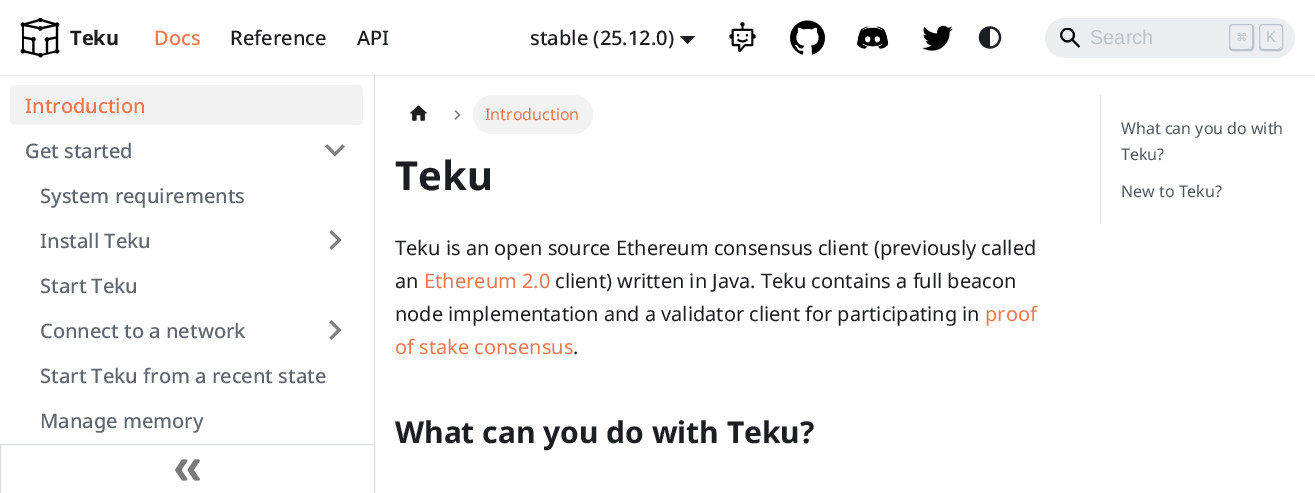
%!PS-Adobe-3.0
%%BoundingBox: 0 0 1315 493
%%LanguageLevel: 3
%%Pages: 1
%%EndComments
%%BeginProlog
/setalpha { dup .setfillconstantalpha .setstrokeconstantalpha } def
/rrect { 5 dict begin { /r /h /w /y /x } { exch def } forall
  x r add y moveto x w add y 2 copy h add r arct x w add y h add x 1 index r arct
  x y h add x y r arct x y 2 copy exch w add exch r arct closepath end } def
/softshadow { 12 dict begin { /a /b /q /h /w /y /x } { exch def } forall gsave /was 0 def
  9 -2 -9 { dup b mul 4 div /e exch def 1 sub .425 mul 2.718 exch exp 1 add a .99 .min exch div /now exch def
    1 1 now sub 1 was sub div sub setalpha /was now def
    w h .min e 2 mul add 0 gt { x e sub y e sub w e 2 mul add h e 2 mul add
      q e add b .6 mul add w h .min 2 div e add .min 0 .max rrect fill } if } for grestore end } def
/drawimage { 5 dict begin { /h /w /y /x /name } { exch def } forall
  gsave x y translate w h scale
  w h 8 [w 0 0 h 0 0] name (r) file false 3 colorimage grestore end } def
%%EndProlog
%%BeginSetup
<< /PageSize [1315 493] /PageUsesTransparency true >> setpagedevice
%%EndSetup
%%Page: 1 1
0 .pushpdf14devicefilter
0 493 translate 1 -1 scale
4 setmiterlimit
1 setgray
0 0 1315 493 rectfill
0.855 0.867 0.882 setrgbcolor
374 75 1 369 rectfill
0 setgray
0 1 1315 75 0 1 0.1 softshadow
1 setgray
0 0 1315 75 rectfill
(images/1.raw) 20 18 40 40 drawimage
0.11 0.118 0.129 setrgbcolor
newpath 680 36 moveto 695 36 lineto 687.5 44 lineto closepath fill
(images/2.raw) 729 22 27 31 drawimage
(images/3.raw) 790 20 35 35 drawimage
(images/4.raw) 857 26 32 23 drawimage
(images/5.raw) 922 25 31 26 drawimage
(images/6.raw) 978 26 24 23 drawimage
0.922 0.929 0.941 setrgbcolor
1045 18 250 40 20 rrect fill
(images/7.raw) 1060 28 20 20 drawimage
0.745 0.765 0.788 setrgbcolor
newpath 1230 46 moveto 1230 47.5 lineto 1230 49 1231 50 1232.5 50 curveto 1250.5 50 lineto 1252 50 1253 49 1253 47.5 curveto 1253 27.5 lineto 1253 26.5 1252.5 26 1252 25.5 curveto 1252 39.5 lineto 1252 49.5 1253.5 49 1244.5 49 curveto 1232.5 49 lineto 1230.5 48.5 1230 47.5 1230 46 curveto closepath fill
1229.5 24.5 24 26 3.5 rrect stroke
newpath 1260 46 moveto 1260 50 1261.5 50 1265 50 curveto 1276 50 lineto 1279.5 50 1281 50 1281 46 curveto 1281 48 1280 49 1278 49 curveto 1263 49 lineto 1261 49 1260 48 1260 46 curveto closepath fill
1259.5 24.5 23 26 3.5 rrect stroke
0.949 setgray
10 85 353 40 5 rrect fill
0.502 setgray
newpath 342.5 144.5 moveto 335 152 lineto 327.5 144.5 lineto 325 146.5 lineto 335 156.5 lineto 345 146.5 lineto closepath fill
newpath 329.5 232.5 moveto 337 240 lineto 329.5 247.5 lineto 331.5 250 lineto 341.5 240 lineto 331.5 230 lineto closepath fill
newpath 329.5 322.5 moveto 337 330 lineto 329.5 337.5 lineto 331.5 340 lineto 341.5 330 lineto 331.5 320 lineto closepath fill
0.855 0.867 0.882 setrgbcolor
0.5 444.5 374 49 rectstroke
(images/8.raw) 175 459 25 22 drawimage
(images/9.raw) 410 105 17 16 drawimage
(images/10.raw) 454 110 7 10 drawimage
0.949 setgray
473 95 120 39 19.5 rrect fill
0.855 0.867 0.882 setrgbcolor
1100 95 1 129 rectfill
/NotoSans-Bold [20 0 0 -20 0 0] selectfont
0.11 0.118 0.129 setrgbcolor
70 45 moveto (Teku) show
/NotoSans-Medium [20 0 0 -20 0 0] selectfont
0.929 0.467 0.31 setrgbcolor
154 45 moveto (Docs) show
0.11 0.118 0.129 setrgbcolor
230 45 moveto (Reference) show
357 45 moveto (API) show
530 45 moveto (stable \(25.12.0\)) show
/LiberationSans-Regular [20 0 0 -20 0 0] selectfont
0.745 0.765 0.788 setrgbcolor
1090 44 moveto (Search) show
/DejaVuSansMono-Regular [16 0 0 -16 0 0] selectfont
1237 43 moveto (⌘) show
/LiberationMono-Regular [16 0 0 -16 0 0] selectfont
1266 42 moveto (K) show
/NotoSans-Medium [20 0 0 -20 0 0] selectfont
0.929 0.467 0.31 setrgbcolor
25 113 moveto (Introduction) show
0.376 0.404 0.439 setrgbcolor
25 158 moveto (Get started) show
40 203 moveto (System requirements) show
40 248 moveto (Install Teku) show
40 293 moveto (Start Teku) show
40 338 moveto (Connect to a network) show
40 383 moveto (Start Teku from a recent state) show
40 428 moveto (Manage memory) show
/NotoSans-Regular [16 0 0 -16 0 0] selectfont
0.929 0.467 0.31 setrgbcolor
485 120 moveto (Introduction) show
/NotoSans-Bold [40 0 0 -40 0 0] selectfont
0.11 0.118 0.129 setrgbcolor
395 190 moveto (Teku) show
/NotoSans-Regular [20 0 0 -20 0 0] selectfont
395 255 moveto (Teku is an open source Ethereum consensus client \(previously called) show
395 288 moveto (an) show
0.929 0.467 0.31 setrgbcolor
424 288 moveto (Ethereum 2.0) show
0.11 0.118 0.129 setrgbcolor
555 288 moveto (client\) written in Java. Teku contains a full beacon) show
395 321 moveto (node implementation and a validator client for participating in) show
0.929 0.467 0.31 setrgbcolor
985 321 moveto (proof) show
395 354 moveto (of stake consensus) show
0.11 0.118 0.129 setrgbcolor
573 354 moveto (.) show
/NotoSans-Bold [30 0 0 -30 0 0] selectfont
395 443 moveto (What can you do with Teku?) show
/NotoSans-Regular [16 0 0 -16 0 0] selectfont
0.322 0.345 0.376 setrgbcolor
1121 134 moveto (What can you do with) show
1121 160 moveto (Teku?) show
1121 197 moveto (New to Teku?) show
.poppdf14devicefilter showpage
%%EOF
